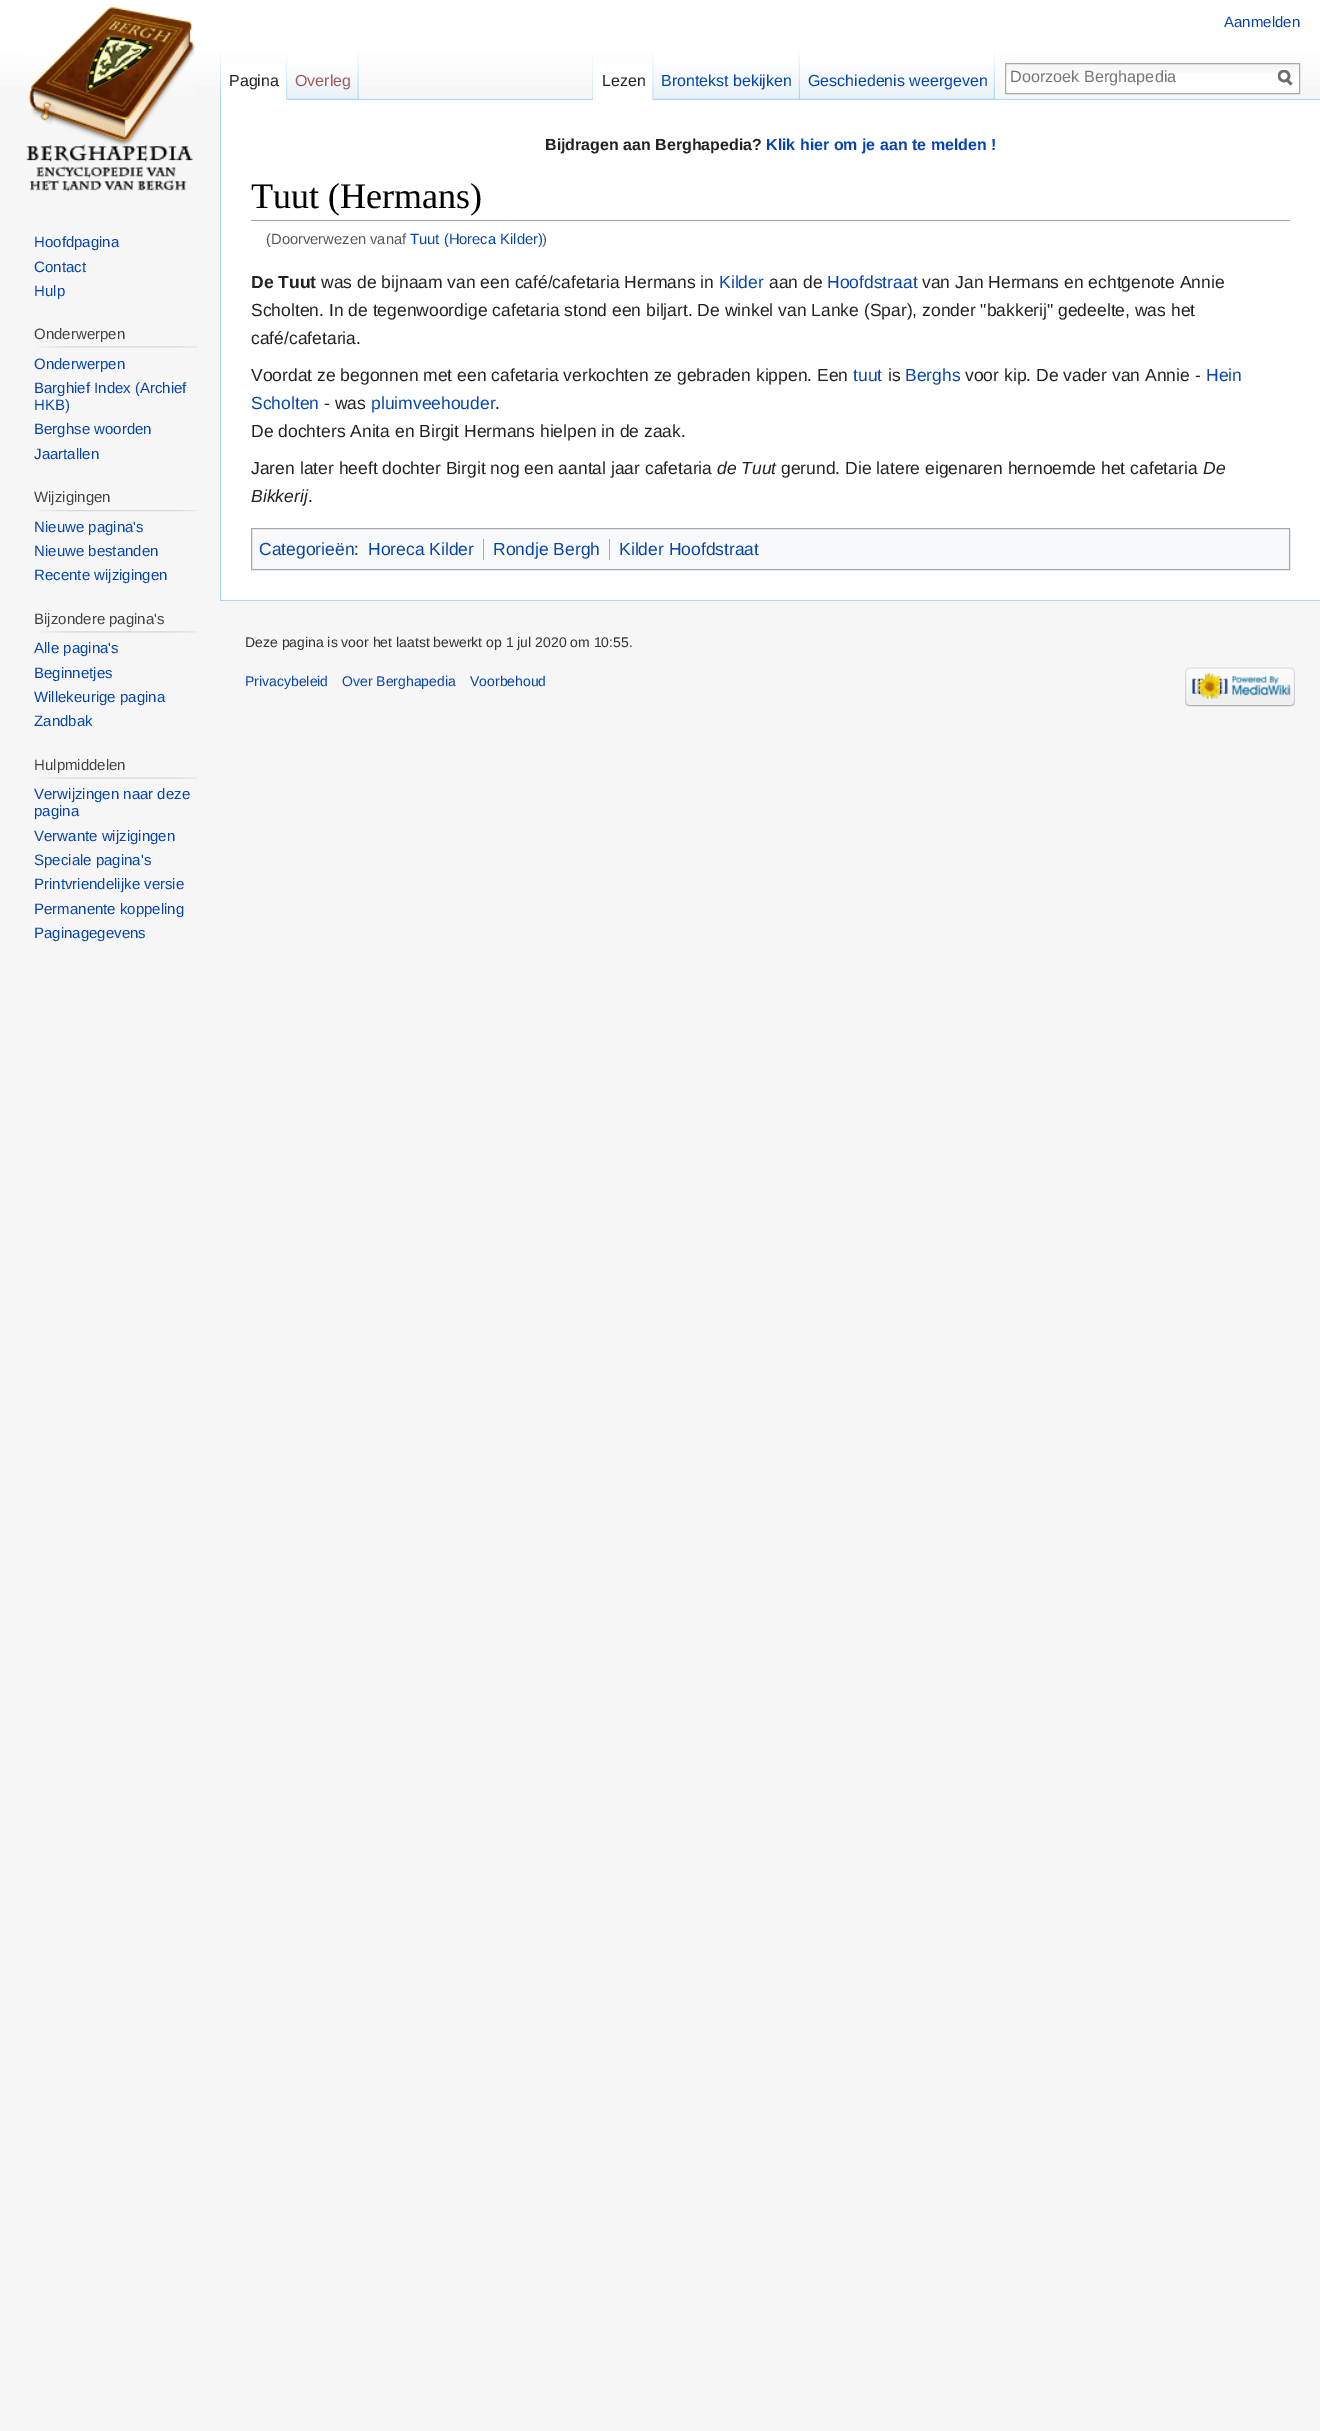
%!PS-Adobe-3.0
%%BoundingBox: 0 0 1320 2431
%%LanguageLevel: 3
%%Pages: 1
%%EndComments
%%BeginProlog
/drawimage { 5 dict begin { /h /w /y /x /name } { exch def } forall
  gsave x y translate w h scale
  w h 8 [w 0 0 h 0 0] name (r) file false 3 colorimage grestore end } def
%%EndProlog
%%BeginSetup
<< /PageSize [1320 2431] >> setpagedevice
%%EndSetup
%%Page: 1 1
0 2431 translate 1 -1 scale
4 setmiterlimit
0.965 setgray
0 0 1320 2431 rectfill
gsave newpath 0 0 moveto 1320 0 lineto 1320 86 lineto 0 86 lineto closepath clip newpath
<< /ShadingType 2 /ColorSpace /DeviceRGB /Coords [660 0 660 100] /Extend [true true] /Function << /FunctionType 3 /Domain [0 1] /Functions [<< /FunctionType 2 /Domain [0 1] /C0 [1 1 1] /C1 [1 1 1] /N 1 >> << /FunctionType 2 /Domain [0 1] /C0 [1 1 1] /C1 [0.965 0.965 0.965] /N 1 >>] /Bounds [0.5] /Encode [0 1 0 1] >> >> shfill grestore
(images/1.raw) 220 50 1 49 drawimage
(images/2.raw) 358 52 1 47 drawimage
1 setgray
221 64 67 36 rectfill
(images/3.raw) 286 52 2 48 drawimage
0.655 0.843 0.976 setrgbcolor
358 99 962 1 rectfill
(images/4.raw) 287 50 72 50 drawimage
(images/5.raw) 357 52 2 48 drawimage
(images/6.raw) 592 52 1 47 drawimage
1 setgray
593 64 61 36 rectfill
(images/7.raw) 652 52 2 48 drawimage
(images/8.raw) 653 50 147 50 drawimage
(images/9.raw) 798 50 2 49 drawimage
(images/10.raw) 800 50 195 50 drawimage
(images/9.raw) 993 50 2 49 drawimage
1006 74 293 19 rectfill
(images/11.raw) 1006 64 293 10 drawimage
0.667 setgray
1005.5 63.5 294 30 rectstroke
0.424 setgray
2.5 setlinewidth
newpath 1291.5 84.5 moveto 1286.5 79.5 lineto stroke
gsave
1278 70 15 16 rectclip
newpath 1284 76 5 0 360 arc closepath stroke
grestore
(images/12.raw) 26 6 169 186 drawimage
(images/13.raw) 37 346 161 2 drawimage
(images/14.raw) 37 510 161 2 drawimage
(images/13.raw) 37 631 161 2 drawimage
(images/15.raw) 37 777 161 2 drawimage
1 setgray
221 100 1099 500 rectfill
0.655 0.843 0.976 setrgbcolor
220 600 1100 1 rectfill
220 99 1 502 rectfill
0.635 0.663 0.694 setrgbcolor
251 220 1039 1 rectfill
0.973 0.976 0.98 setrgbcolor
newpath 251.5 528.5 moveto 1289.5 528.5 lineto 1289.5 569.5 lineto 251.5 569.5 lineto closepath gsave fill grestore
0.635 0.663 0.694 setrgbcolor
1 setlinewidth
stroke
483 539 1 21 rectfill
609 539 1 21 rectfill
(images/16.raw) 1185 667 110 40 drawimage
/LiberationSans-Regular [15 0 0 -15 0 0] selectfont
0.024 0.271 0.678 setrgbcolor
1224 27 moveto (Aanmelden) show
/LiberationSans-Regular [16 0 0 -16 0 0] selectfont
0.133 setgray
229 86 moveto (Pagina) show
0.647 0.345 0.345 setrgbcolor
295 86 moveto (Overleg) show
0.133 setgray
602 86 moveto (Lezen) show
0.024 0.271 0.678 setrgbcolor
661 86 moveto (Brontekst bekijken) show
808 86 moveto (Geschiedenis weergeven) show
/LiberationSans-Regular [16.25 0 0 -16.25 0 0] selectfont
0.447 0.467 0.49 setrgbcolor
1010 82 moveto (Doorzoek Berghapedia) show
/LiberationSans-Regular [15 0 0 -15 0 0] selectfont
0.024 0.271 0.678 setrgbcolor
34 247 moveto (Hoofdpagina) show
34 272 moveto (Contact) show
34 296 moveto (Hulp) show
0.267 setgray
34 339 moveto (Onderwerpen) show
0.024 0.271 0.678 setrgbcolor
34 369 moveto (Onderwerpen) show
34 393 moveto (Barghief Index \(Archief) show
34 410 moveto (HKB\)) show
34 434 moveto (Berghse woorden) show
34 459 moveto (Jaartallen) show
0.267 setgray
34 502 moveto (Wijzigingen) show
0.024 0.271 0.678 setrgbcolor
34 532 moveto (Nieuwe pagina's) show
34 556 moveto (Nieuwe bestanden) show
34 580 moveto (Recente wijzigingen) show
0.267 setgray
34 624 moveto (Bijzondere pagina's) show
0.024 0.271 0.678 setrgbcolor
34 653 moveto (Alle pagina's) show
34 678 moveto (Beginnetjes) show
34 702 moveto (Willekeurige pagina) show
34 726 moveto (Zandbak) show
0.267 setgray
34 770 moveto (Hulpmiddelen) show
0.024 0.271 0.678 setrgbcolor
34 799 moveto (Verwijzingen naar deze) show
34 816 moveto (pagina) show
34 841 moveto (Verwante wijzigingen) show
34 865 moveto (Speciale pagina's) show
34 889 moveto (Printvriendelijke versie) show
34 914 moveto (Permanente koppeling) show
34 938 moveto (Paginagegevens) show
/LiberationSans-Bold [16 0 0 -16 0 0] selectfont
0.133 setgray
545 150 moveto (Bijdragen aan Berghapedia?) show
0.024 0.271 0.678 setrgbcolor
766 150 moveto (Klik hier om je aan te melden !) show
/LiberationSerif-Regular [36 0 0 -36 0 0] selectfont
0 setgray
251 208 moveto (Tuut \(Hermans\)) show
/LiberationSans-Regular [14.75 0 0 -14.75 0 0] selectfont
0.329 0.349 0.365 setrgbcolor
266 244 moveto (\(Doorverwezen vanaf) show
0.024 0.271 0.678 setrgbcolor
410 244 moveto (Tuut \(Horeca Kilder\)) show
0.329 0.349 0.365 setrgbcolor
542 244 moveto (\)) show
/LiberationSans-Bold [17.5 0 0 -17.5 0 0] selectfont
0.133 setgray
251 288 moveto (De Tuut) show
/LiberationSans-Regular [17.5 0 0 -17.5 0 0] selectfont
321 288 moveto (was de bijnaam van een café/cafetaria Hermans in) show
0.024 0.271 0.678 setrgbcolor
719 288 moveto (Kilder) show
0.133 setgray
769 288 moveto (aan de) show
0.024 0.271 0.678 setrgbcolor
827 288 moveto (Hoofdstraat) show
0.133 setgray
922 288 moveto (van Jan Hermans en echtgenote Annie) show
251 316 moveto (Scholten. In de tegenwoordige cafetaria stond een biljart. De winkel van Lanke \(Spar\), zonder "bakkerij" gedeelte, was het) show
251 344 moveto (café/cafetaria.) show
251 381 moveto (Voordat ze begonnen met een cafetaria verkochten ze gebraden kippen. Een) show
0.024 0.271 0.678 setrgbcolor
853 381 moveto (tuut) show
0.133 setgray
888 381 moveto (is) show
0.024 0.271 0.678 setrgbcolor
905 381 moveto (Berghs) show
0.133 setgray
965 381 moveto (voor kip. De vader van Annie -) show
0.024 0.271 0.678 setrgbcolor
1206 381 moveto (Hein) show
251 409 moveto (Scholten) show
0.133 setgray
324 409 moveto (- was) show
0.024 0.271 0.678 setrgbcolor
371 409 moveto (pluimveehouder) show
0.133 setgray
495 409 moveto (.) show
251 437 moveto (De dochters Anita en Birgit Hermans hielpen in de zaak.) show
251 474 moveto (Jaren later heeft dochter Birgit nog een aantal jaar cafetaria) show
/LiberationSans-Italic [17.5 0 0 -17.5 0 0] selectfont
717 474 moveto (de Tuut) show
/LiberationSans-Regular [17.5 0 0 -17.5 0 0] selectfont
781 474 moveto (gerund. Die latere eigenaren hernoemde het cafetaria) show
/LiberationSans-Italic [17.5 0 0 -17.5 0 0] selectfont
1203 474 moveto (De) show
251 502 moveto (Bikkerij) show
/LiberationSans-Regular [17.5 0 0 -17.5 0 0] selectfont
308 502 moveto (.) show
0.024 0.271 0.678 setrgbcolor
259 555 moveto (Categorieën) show
0.133 setgray
354 555 moveto (:) show
0.024 0.271 0.678 setrgbcolor
368 555 moveto (Horeca Kilder) show
493 555 moveto (Rondje Bergh) show
619 555 moveto (Kilder Hoofdstraat) show
/LiberationSans-Regular [14 0 0 -14 0 0] selectfont
0.2 setgray
245 647 moveto (Deze pagina is voor het laatst bewerkt op 1 jul 2020 om 10:55.) show
0.024 0.271 0.678 setrgbcolor
245 686 moveto (Privacybeleid) show
342 686 moveto (Over Berghapedia) show
470 686 moveto (Voorbehoud) show
showpage
%%EOF
